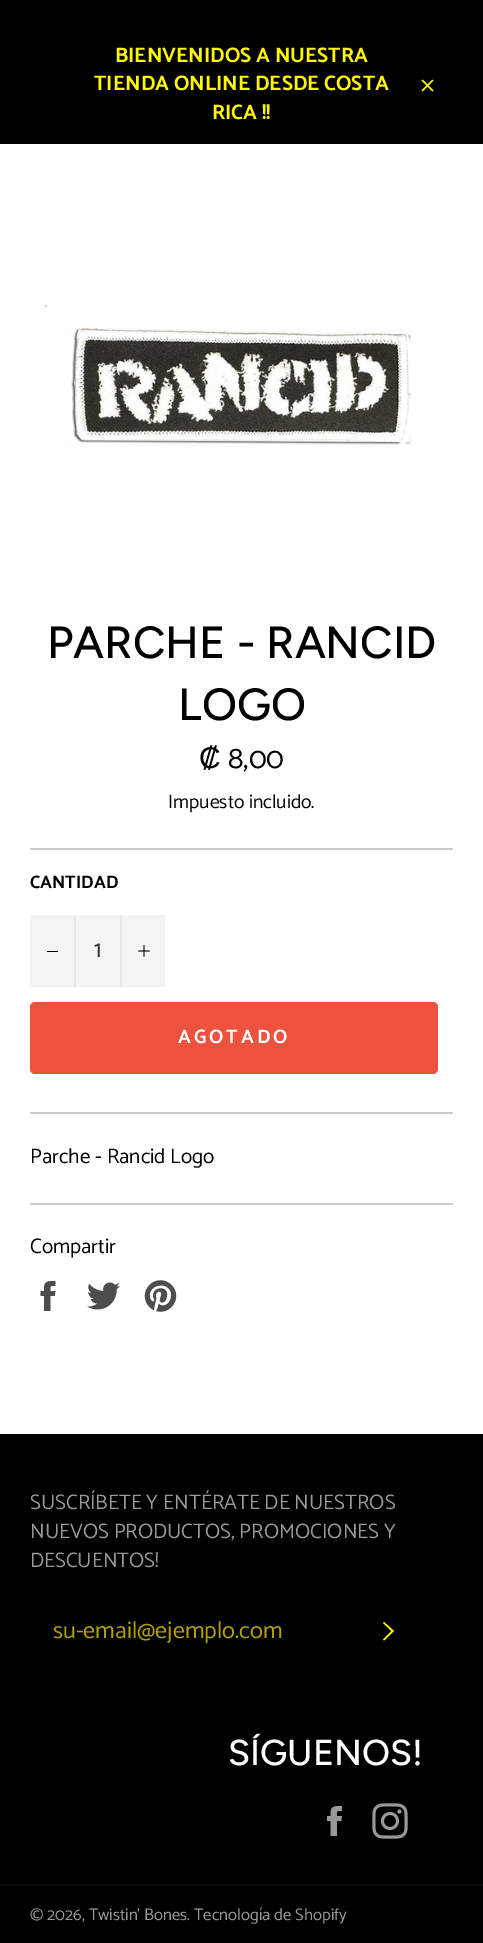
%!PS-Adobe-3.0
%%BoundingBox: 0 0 483 1943
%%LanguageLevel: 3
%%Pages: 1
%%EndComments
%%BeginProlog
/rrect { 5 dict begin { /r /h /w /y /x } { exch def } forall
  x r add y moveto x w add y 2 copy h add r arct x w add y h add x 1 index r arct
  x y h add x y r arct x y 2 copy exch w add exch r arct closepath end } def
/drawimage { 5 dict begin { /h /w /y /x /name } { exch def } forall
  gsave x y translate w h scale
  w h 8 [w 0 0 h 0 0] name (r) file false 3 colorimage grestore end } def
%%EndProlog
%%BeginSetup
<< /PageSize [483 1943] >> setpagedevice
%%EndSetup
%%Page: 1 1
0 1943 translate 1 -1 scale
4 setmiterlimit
0 setgray
0 0 483 1943 rectfill
(images/1.raw) 421 79 13 13 drawimage
1 setgray
0 144 483 1290 rectfill
(images/2.raw) 45 305 367 140 drawimage
0.808 setgray
30 848 423 2 rectfill
0.957 setgray
30 915 135 72 rectfill
0.906 setgray
74 915 2 72 rectfill
0 setgray
47 951 11 1 rectfill
0.906 setgray
120 915 2 72 rectfill
(images/3.raw) 138 945 12 12 drawimage
0.925 0.322 0.243 setrgbcolor
30 1002 408 72 5 rrect fill
0.808 setgray
30 1112 423 2 rectfill
30 1203 423 2 rectfill
(images/4.raw) 40 1281 16 30 drawimage
(images/5.raw) 87 1282 33 28 drawimage
(images/6.raw) 144 1280 33 32 drawimage
1 0.973 0 setrgbcolor
newpath 383 1623 moveto 384 1622 lineto 394 1631 lineto 384 1640.5 lineto 383 1639.5 lineto 391.5 1631 lineto closepath fill
(images/7.raw) 327 1806 15 30 drawimage
(images/8.raw) 372 1803 36 36 drawimage
0.051 setgray
0 1884 483 2 rectfill
/Catamaran-Bold [21 0 0 -21 0 0] selectfont
1 0.973 0 setrgbcolor
115 62 moveto (BIENVENIDOS A NUESTRA) show
94 90 moveto (TIENDA ONLINE DESDE COSTA) show
212 119 moveto (RICA !!) show
/Figtree-Medium [45 0 0 -45 0 0] selectfont
0 setgray
47 658 moveto (PARCHE - RANCID) show
178 720 moveto (LOGO) show
/LiberationSans-Regular [30 0 0 -30 0 0] selectfont
199 768 moveto (₡) show
/Catamaran-Regular [30 0 0 -30 0 0] selectfont
228 768 moveto (8,00) show
/Catamaran-Regular [19.5 0 0 -19.5 0 0] selectfont
168 808 moveto (Impuesto incluido.) show
/Catamaran-Bold [18 0 0 -18 0 0] selectfont
30 888 moveto (CANTIDAD) show
/Catamaran-Regular [24 0 0 -24 0 0] selectfont
0.2 setgray
94 957 moveto (1) show
/Catamaran-Bold [19.5 0 0 -19.5 0 0] selectfont
1 setgray
178 1043 moveto 3 0 (AGOTADO) ashow
/Catamaran-Regular [21 0 0 -21 0 0] selectfont
0 setgray
30 1163 moveto (Parche - Rancid Logo) show
30 1253 moveto (Compartir) show
0.6 setgray
30 1509 moveto (SUSCRÍBETE Y ENTÉRATE DE NUESTROS) show
30 1538 moveto (NUEVOS PRODUCTOS, PROMOCIONES Y) show
30 1567 moveto (DESCUENTOS!) show
/Catamaran-Regular [24 0 0 -24 0 0] selectfont
0.702 0.627 0 setrgbcolor
53 1638 moveto (su-email@ejemplo.com) show
/Figtree-Medium [36 0 0 -36 0 0] selectfont
1 setgray
228 1765 moveto (SÍGUENOS!) show
/Catamaran-Regular [16.75 0 0 -16.75 0 0] selectfont
0.6 setgray
30 1920 moveto (© 2026, Twistin' Bones. Tecnología de Shopify) show
showpage
%%EOF
